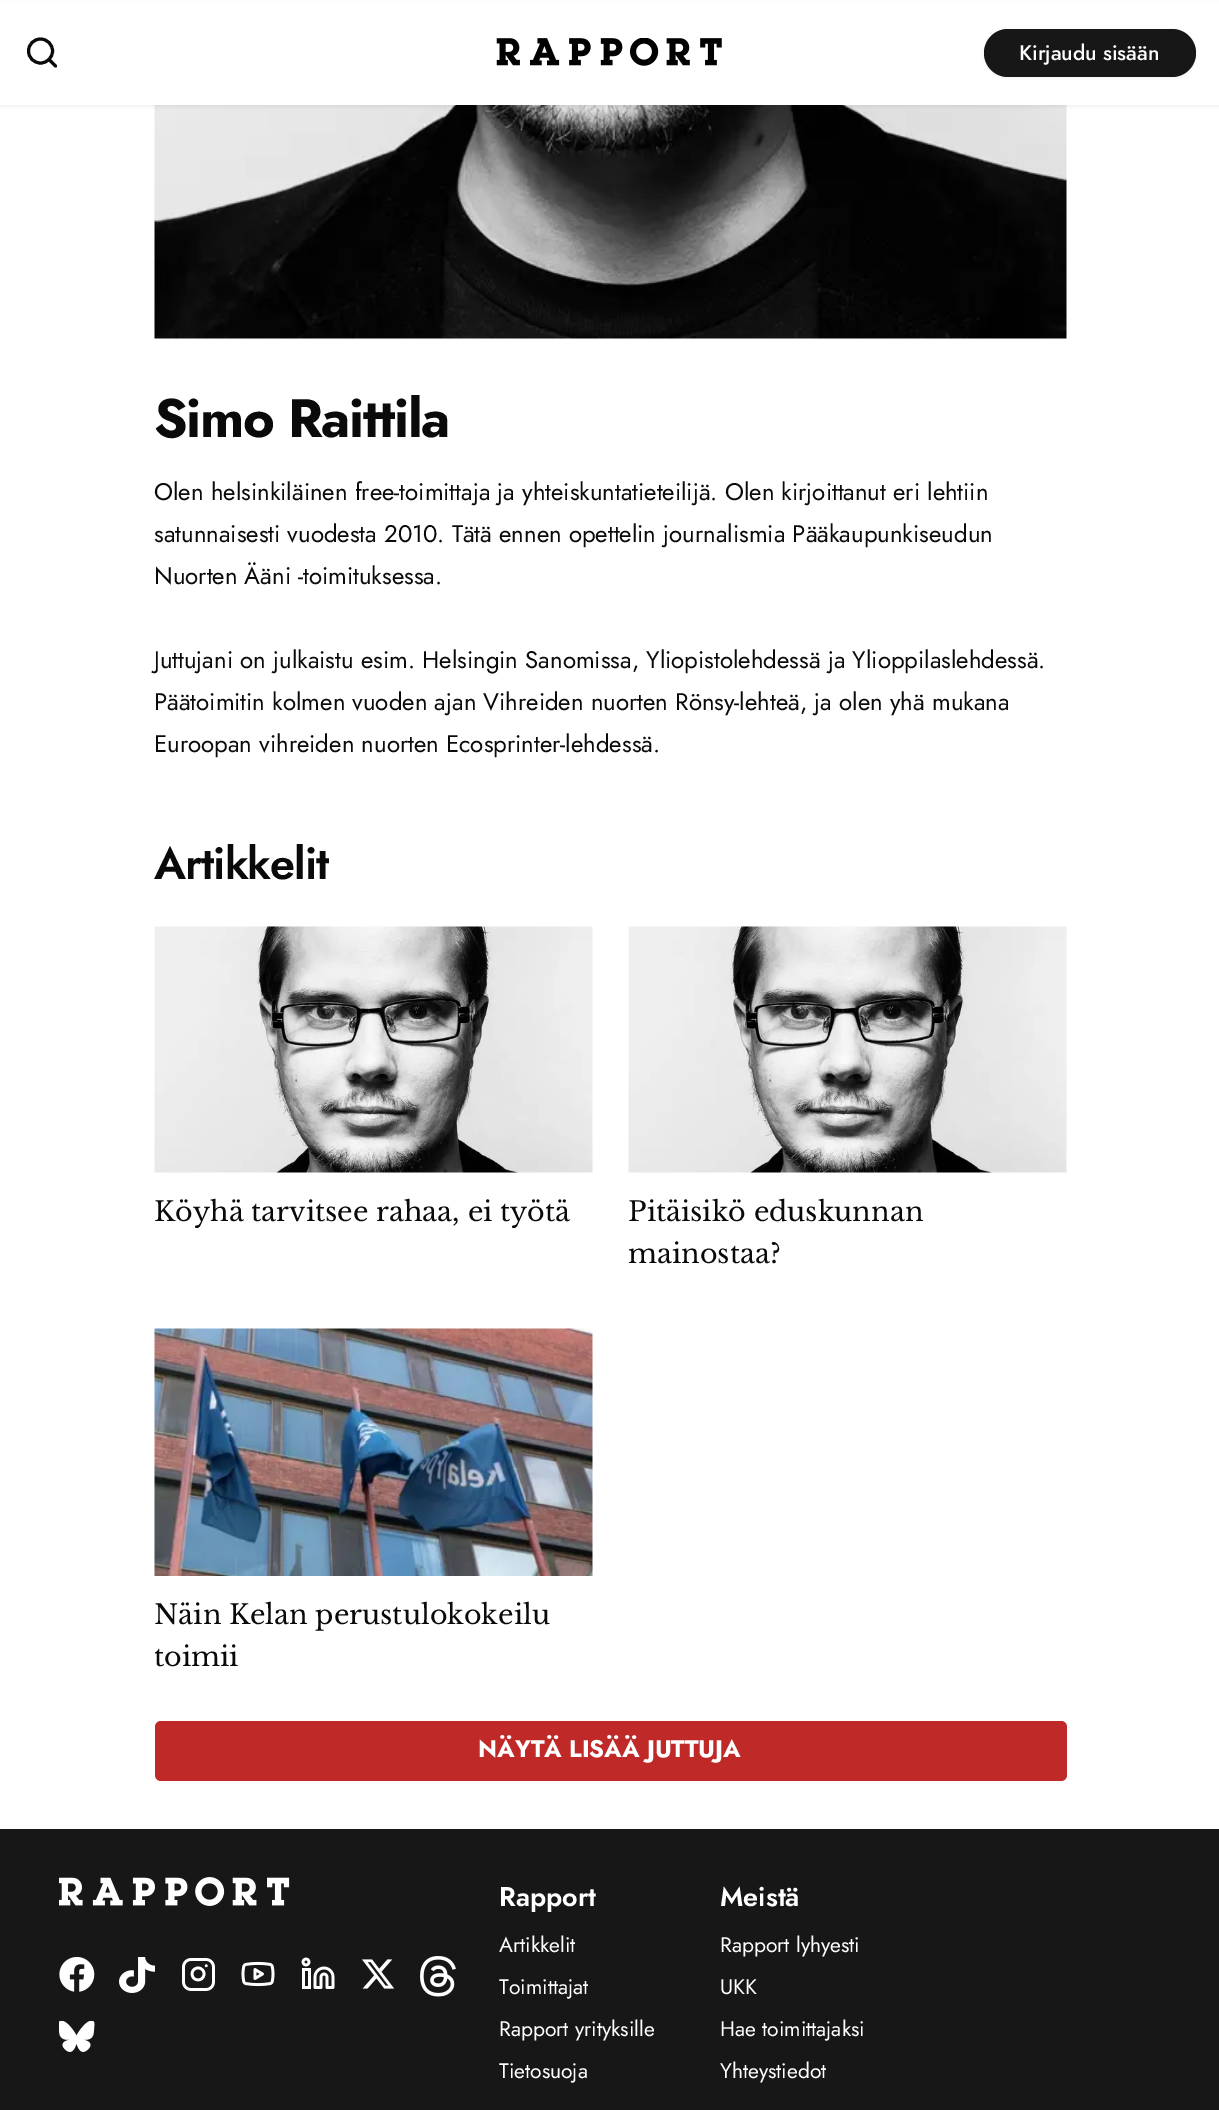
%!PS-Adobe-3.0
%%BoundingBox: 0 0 1219 2110
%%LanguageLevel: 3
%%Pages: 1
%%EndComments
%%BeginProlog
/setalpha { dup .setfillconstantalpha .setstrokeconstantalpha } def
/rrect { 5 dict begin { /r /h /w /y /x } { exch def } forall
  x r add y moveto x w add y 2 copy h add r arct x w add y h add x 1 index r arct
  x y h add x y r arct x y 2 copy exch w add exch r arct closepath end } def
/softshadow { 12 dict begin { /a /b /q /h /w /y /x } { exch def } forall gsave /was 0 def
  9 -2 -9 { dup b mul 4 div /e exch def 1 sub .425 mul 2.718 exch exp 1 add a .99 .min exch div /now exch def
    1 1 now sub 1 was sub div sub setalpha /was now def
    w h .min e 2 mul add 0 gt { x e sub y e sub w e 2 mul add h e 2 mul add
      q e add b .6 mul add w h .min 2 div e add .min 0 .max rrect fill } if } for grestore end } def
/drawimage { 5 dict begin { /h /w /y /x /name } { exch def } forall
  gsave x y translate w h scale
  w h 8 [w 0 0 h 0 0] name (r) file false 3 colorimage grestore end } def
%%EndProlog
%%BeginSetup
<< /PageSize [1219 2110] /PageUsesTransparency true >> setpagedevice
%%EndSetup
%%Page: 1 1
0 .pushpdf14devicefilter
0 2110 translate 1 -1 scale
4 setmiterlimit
1 setgray
0 0 1219 2110 rectfill
(images/2.raw) 154 105 913 234 drawimage
0 setgray
0 2 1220 105 0 1.5 0.05 softshadow
1 setgray
0 1 1219 104 rectfill
0.039 setgray
3 setlinewidth
newpath 40.5 51 12 0 360 arc closepath stroke
1 setlinecap
1 setlinejoin
newpath 55.5 66 moveto 49 59.5 lineto stroke
(images/1.raw) 496 38 226 28 drawimage
0 setgray
984 30 212 48 24 1.5 0.05 softshadow
0.09 setgray
984 29 212 48 24 rrect fill
(images/3.raw) 154 926 439 247 drawimage
(images/3.raw) 628 926 439 247 drawimage
(images/4.raw) 154 1328 439 248 drawimage
0.749 0.165 0.161 setrgbcolor
155 1721 912 60 6 rrect fill
0.09 setgray
0 1829 1219 281 rectfill
(images/5.raw) 59 1877 231 29 drawimage
(images/6.raw) 59 1956 36 36 drawimage
(images/7.raw) 119 1957 36 36 drawimage
(images/8.raw) 182 1958 33 33 drawimage
(images/9.raw) 241 1961 34 26 drawimage
(images/10.raw) 301 1957 34 32 drawimage
(images/11.raw) 362 1959 33 30 drawimage
(images/12.raw) 420 1956 36 41 drawimage
(images/13.raw) 59 2021 36 31 drawimage
/Jost-Medium [21 0 0 -21 0 0] selectfont
1 setgray
1019 60 moveto (Kirjaudu sisään) show
/Jost-Bold [54 0 0 -54 0 0] selectfont
0.039 setgray
154 437 moveto -1.4 0 (Simo Raittila) ashow
/Jost-Regular [24 0 0 -24 0 0] selectfont
154 500 moveto (Olen helsinkiläinen free-toimittaja ja yhteiskuntatieteilijä. Olen kirjoittanut eri lehtiin) show
154 542 moveto (satunnaisesti vuodesta 2010. Tätä ennen opettelin journalismia Pääkaupunkiseudun) show
154 584 moveto (Nuorten Ääni -toimituksessa.) show
154 668 moveto (Juttujani on julkaistu esim. Helsingin Sanomissa, Yliopistolehdessä ja Ylioppilaslehdessä.) show
154 710 moveto (Päätoimitin kolmen vuoden ajan Vihreiden nuorten Rönsy-lehteä, ja olen yhä mukana) show
154 752 moveto (Euroopan vihreiden nuorten Ecosprinter-lehdessä.) show
/Jost-SemiBold [45 0 0 -45 0 0] selectfont
154 879 moveto -1.1 0 (Artikkelit) ashow
/LibreBaskerville-Regular [27 0 0 -27 0 0] selectfont
154 1221 moveto (Köyhä tarvitsee rahaa, ei työtä) show
628 1221 moveto (Pitäisikö eduskunnan) show
628 1263 moveto (mainostaa?) show
154 1624 moveto (Näin Kelan perustulokokeilu) show
154 1666 moveto (toimii) show
/Jost-Bold [24 0 0 -24 0 0] selectfont
1 setgray
478 1757 moveto (NÄYTÄ LISÄÄ JUTTUJA) show
/Jost-SemiBold [27 0 0 -27 0 0] selectfont
499 1906 moveto (Rapport) show
/Jost-Regular [21 0 0 -21 0 0] selectfont
499 1952 moveto (Artikkelit) show
499 1994 moveto (Toimittajat) show
499 2036 moveto (Rapport yrityksille) show
499 2078 moveto (Tietosuoja) show
/Jost-SemiBold [27 0 0 -27 0 0] selectfont
720 1906 moveto (Meistä) show
/Jost-Regular [21 0 0 -21 0 0] selectfont
720 1952 moveto (Rapport lyhyesti) show
720 1994 moveto (UKK) show
720 2036 moveto (Hae toimittajaksi) show
720 2078 moveto (Yhteystiedot) show
.poppdf14devicefilter showpage
%%EOF
